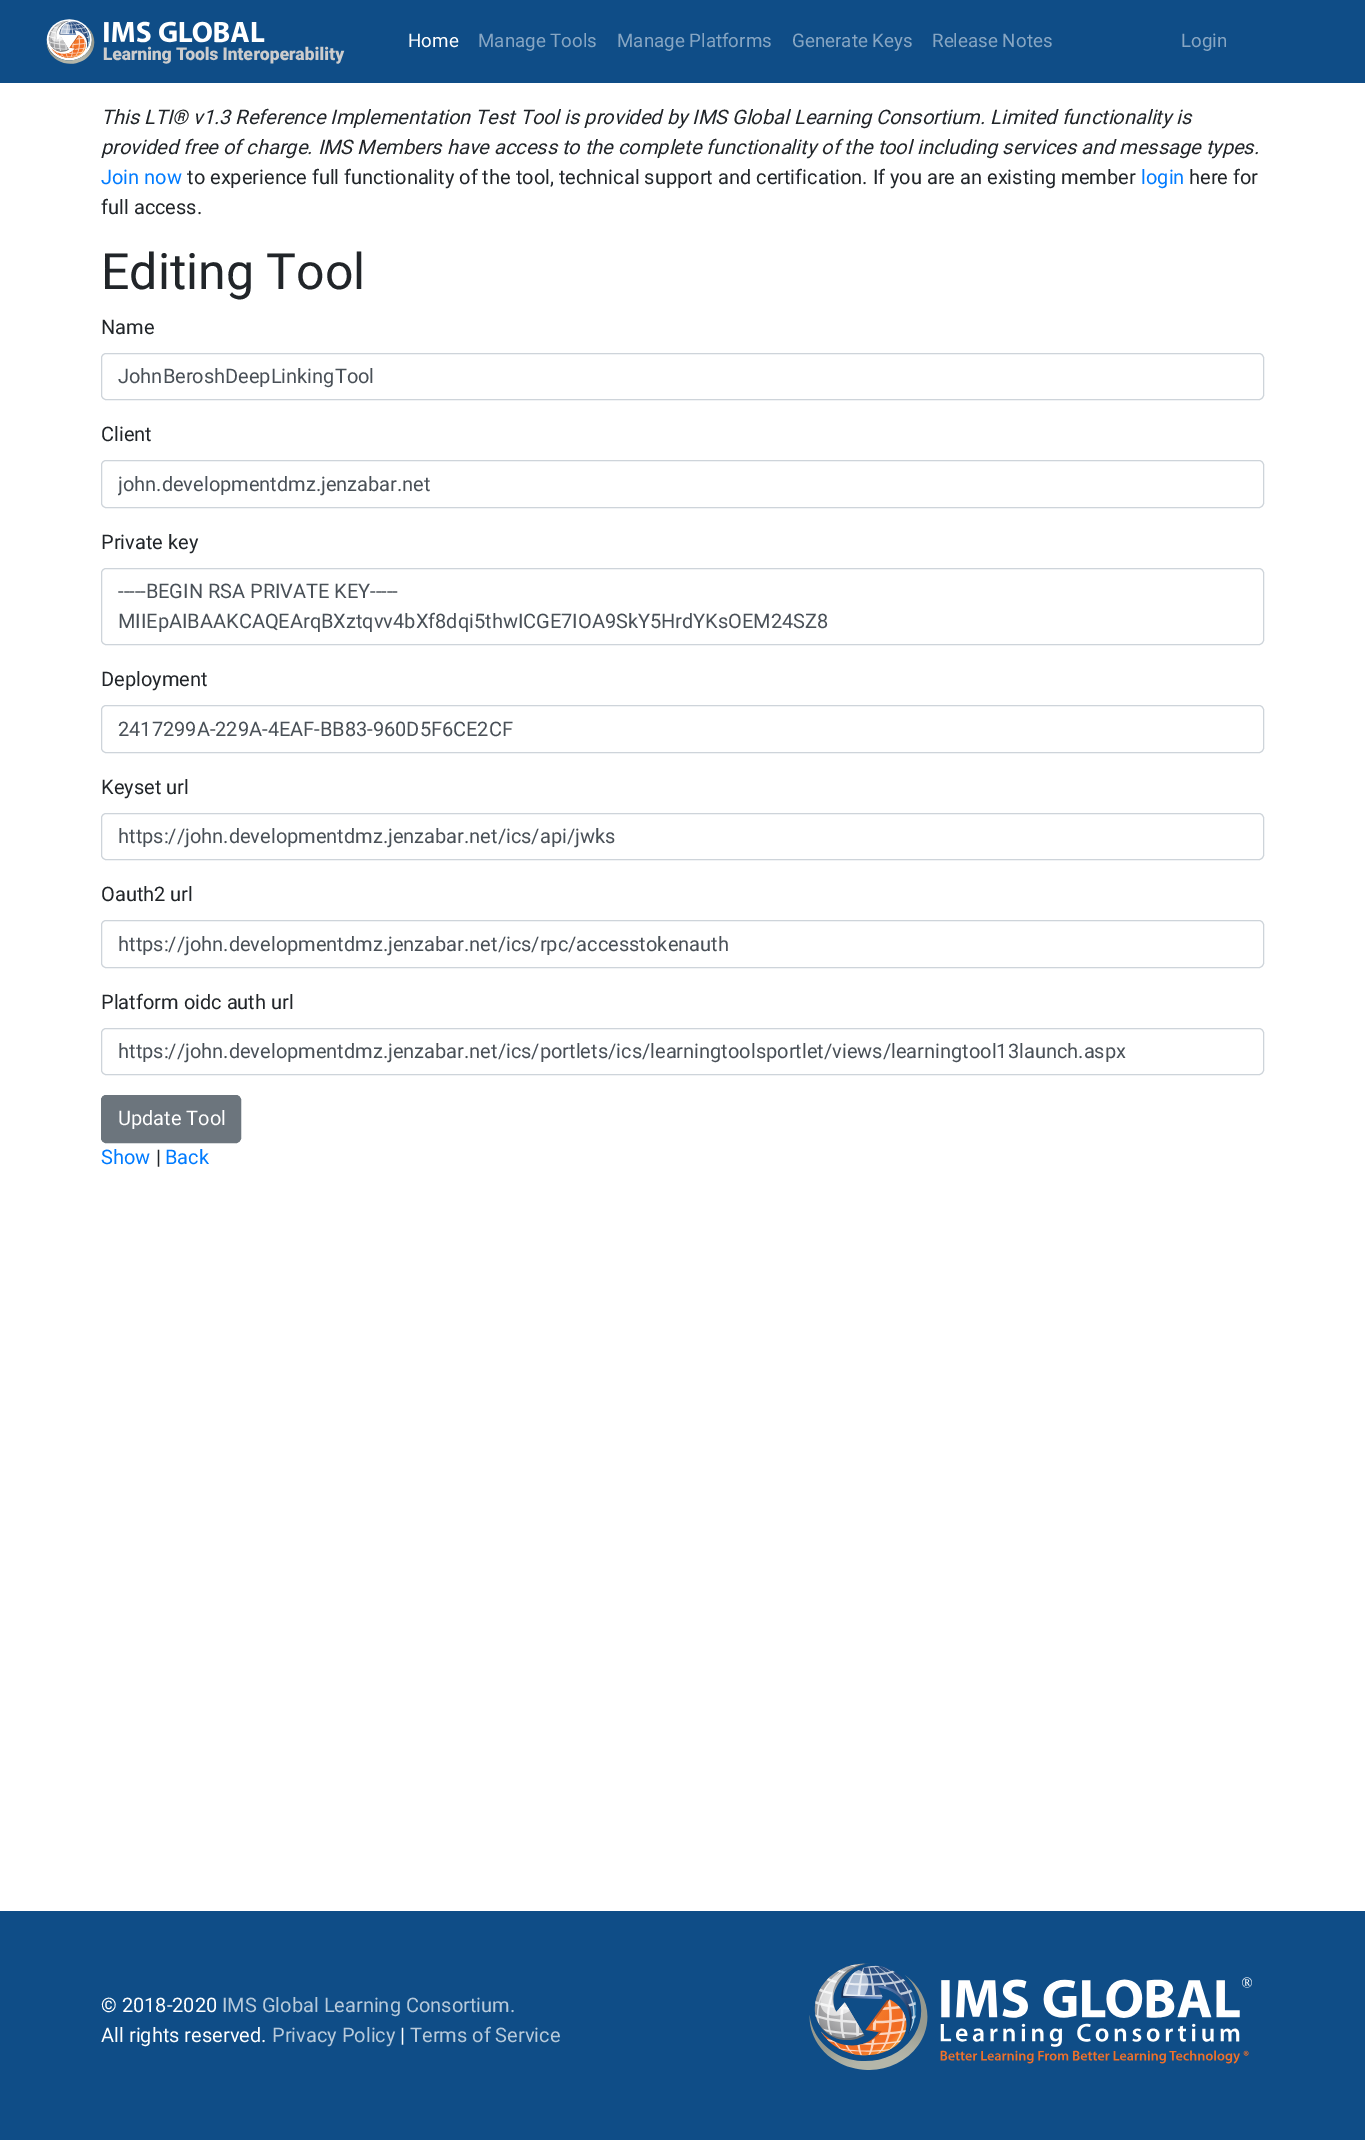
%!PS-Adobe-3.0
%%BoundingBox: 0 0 1365 2140
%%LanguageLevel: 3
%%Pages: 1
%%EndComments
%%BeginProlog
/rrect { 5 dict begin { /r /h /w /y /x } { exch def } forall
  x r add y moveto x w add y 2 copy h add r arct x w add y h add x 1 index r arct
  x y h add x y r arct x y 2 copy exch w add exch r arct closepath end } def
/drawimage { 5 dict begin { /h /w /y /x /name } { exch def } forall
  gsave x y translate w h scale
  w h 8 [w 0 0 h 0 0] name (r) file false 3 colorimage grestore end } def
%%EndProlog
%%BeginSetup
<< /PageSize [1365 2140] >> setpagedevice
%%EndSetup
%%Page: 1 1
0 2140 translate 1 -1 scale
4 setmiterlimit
1 setgray
0 0 1365 2140 rectfill
0.059 0.302 0.529 setrgbcolor
0 0 1365 83 rectfill
(images/1.raw) 46 19 299 45 drawimage
0.808 0.831 0.855 setrgbcolor
101.5 353.5 1162 46 4.5 rrect stroke
101.5 460.5 1162 47 4.5 rrect stroke
101.5 568.5 1162 76 4.5 rrect stroke
101.5 705.5 1162 47 4.5 rrect stroke
101.5 813.5 1162 46 4.5 rrect stroke
101.5 920.5 1162 47 4.5 rrect stroke
101.5 1028.5 1162 46 4.5 rrect stroke
0.424 0.459 0.49 setrgbcolor
101.5 1095.5 139 47 4.5 rrect gsave fill grestore
stroke
0.059 0.302 0.529 setrgbcolor
0 1911 1365 229 rectfill
(images/2.raw) 809 1963 443 107 drawimage
/Roboto-Regular [18.75 0 0 -18.75 0 0] selectfont
1 setgray
408 47 moveto (Home) show
0.529 0.651 0.765 setrgbcolor
478 47 moveto (Manage Tools) show
617 47 moveto (Manage Platforms) show
792 47 moveto (Generate Keys) show
932 47 moveto (Release Notes) show
1181 47 moveto (Login) show
/Roboto-Italic [20 0 0 -20 0 0] selectfont
0.129 0.145 0.161 setrgbcolor
101 124 moveto (This LTI® v1.3 Reference Implementation Test Tool is provided by IMS Global Learning Consortium. Limited functionality is) show
101 154 moveto (provided free of charge. IMS Members have access to the complete functionality of the tool including services and message types.) show
/Roboto-Regular [20 0 0 -20 0 0] selectfont
0 0.482 1 setrgbcolor
101 184 moveto (Join now) show
0.129 0.145 0.161 setrgbcolor
187 184 moveto (to experience full functionality of the tool, technical support and certification. If you are an existing member) show
0 0.482 1 setrgbcolor
1141 184 moveto (login) show
0.129 0.145 0.161 setrgbcolor
1189 184 moveto (here for) show
101 214 moveto (full access.) show
/Roboto-Regular [50 0 0 -50 0 0] selectfont
101 289 moveto (Editing Tool) show
/Roboto-Regular [20 0 0 -20 0 0] selectfont
101 334 moveto (Name) show
0.286 0.314 0.341 setrgbcolor
118 383 moveto (JohnBeroshDeepLinkingTool) show
0.129 0.145 0.161 setrgbcolor
101 441 moveto (Client) show
gsave
118 473 1130 23 rectclip
0.286 0.314 0.341 setrgbcolor
118 491 moveto (john.developmentdmz.jenzabar.net) show
grestore
101 549 moveto (Private key) show
0.286 0.314 0.341 setrgbcolor
118 598 moveto (-----BEGIN RSA PRIVATE KEY-----) show
118 628 moveto (MIIEpAIBAAKCAQEArqBXztqvv4bXf8dqi5thwICGE7IOA9SkY5HrdYKsOEM24SZ8) show
0.129 0.145 0.161 setrgbcolor
101 686 moveto (Deployment) show
0.286 0.314 0.341 setrgbcolor
118 736 moveto (2417299A-229A-4EAF-BB83-960D5F6CE2CF) show
0.129 0.145 0.161 setrgbcolor
101 794 moveto (Keyset url) show
0.286 0.314 0.341 setrgbcolor
118 843 moveto (https://john.developmentdmz.jenzabar.net/ics/api/jwks) show
0.129 0.145 0.161 setrgbcolor
101 901 moveto (Oauth2 url) show
0.286 0.314 0.341 setrgbcolor
118 951 moveto (https://john.developmentdmz.jenzabar.net/ics/rpc/accesstokenauth) show
0.129 0.145 0.161 setrgbcolor
101 1009 moveto (Platform oidc auth url) show
0.286 0.314 0.341 setrgbcolor
118 1058 moveto (https://john.developmentdmz.jenzabar.net/ics/portlets/ics/learningtoolsportlet/views/learningtool13launch.aspx) show
1 setgray
118 1125 moveto (Update Tool) show
0 0.482 1 setrgbcolor
101 1164 moveto (Show) show
0.129 0.145 0.161 setrgbcolor
156 1164 moveto (|) show
0 0.482 1 setrgbcolor
165 1164 moveto (Back) show
1 setgray
101 2012 moveto (© 2018-2020) show
0.718 0.792 0.859 setrgbcolor
222 2012 moveto (IMS Global Learning Consortium.) show
1 setgray
101 2042 moveto (All rights reserved.) show
0.718 0.792 0.859 setrgbcolor
272 2042 moveto (Privacy Policy) show
1 setgray
400 2042 moveto (|) show
0.718 0.792 0.859 setrgbcolor
410 2042 moveto (Terms of Service) show
showpage
%%EOF
